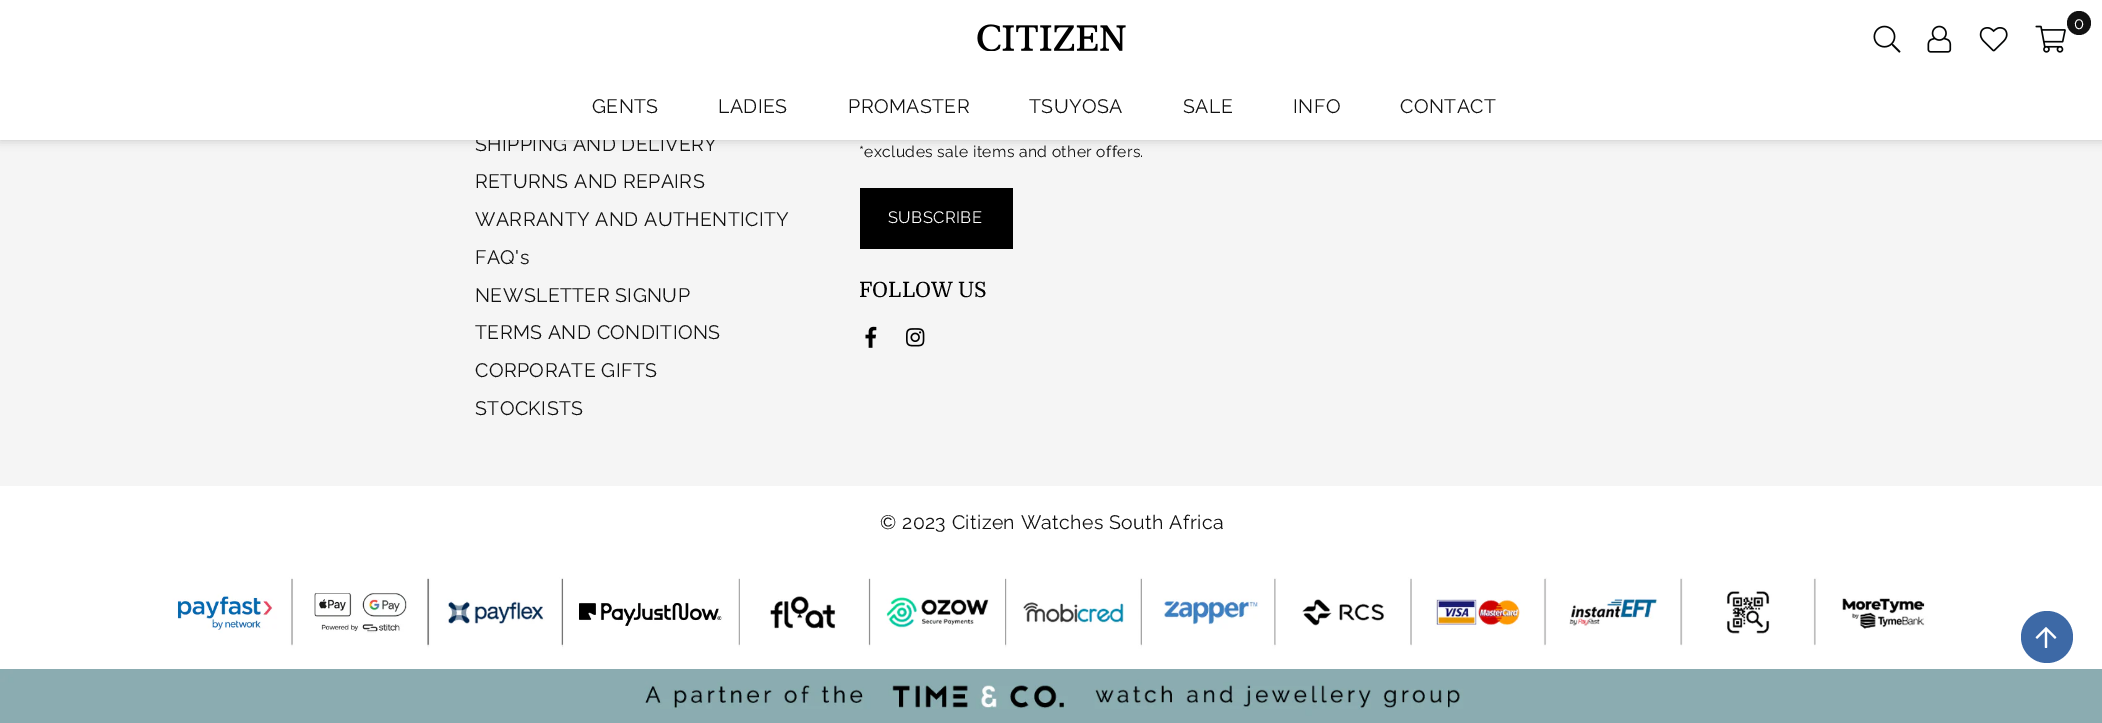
%!PS-Adobe-3.0
%%BoundingBox: 0 0 2102 723
%%LanguageLevel: 3
%%Pages: 1
%%EndComments
%%BeginProlog
/setalpha { dup .setfillconstantalpha .setstrokeconstantalpha } def
/rrect { 5 dict begin { /r /h /w /y /x } { exch def } forall
  x r add y moveto x w add y 2 copy h add r arct x w add y h add x 1 index r arct
  x y h add x y r arct x y 2 copy exch w add exch r arct closepath end } def
/softshadow { 12 dict begin { /a /b /q /h /w /y /x } { exch def } forall gsave /was 0 def
  9 -2 -9 { dup b mul 4 div /e exch def 1 sub .425 mul 2.718 exch exp 1 add a .99 .min exch div /now exch def
    1 1 now sub 1 was sub div sub setalpha /was now def
    w h .min e 2 mul add 0 gt { x e sub y e sub w e 2 mul add h e 2 mul add
      q e add b .6 mul add w h .min 2 div e add .min 0 .max rrect fill } if } for grestore end } def
/drawimage { 5 dict begin { /h /w /y /x /name } { exch def } forall
  gsave x y translate w h scale
  w h 8 [w 0 0 h 0 0] name (r) file false 3 colorimage grestore end } def
%%EndProlog
%%BeginSetup
<< /PageSize [2102 723] /PageUsesTransparency true >> setpagedevice
%%EndSetup
%%Page: 1 1
0 .pushpdf14devicefilter
0 723 translate 1 -1 scale
4 setmiterlimit
0.961 setgray
0 0 2102 723 rectfill
0 setgray
0 0 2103 140 0 5 0.2 softshadow
860 188 153 61 rectfill
(images/6.raw) 865 326 12 22 drawimage
(images/7.raw) 906 328 19 19 drawimage
1 setgray
0 486 2102 74 rectfill
(images/8.raw) 0 560 2102 109 drawimage
(images/9.raw) 0 669 2102 54 drawimage
0.239 0.412 0.651 setrgbcolor
newpath 2047 637 26 0 360 arc closepath fill
(images/10.raw) 2035 627 22 21 drawimage
/Raleway-Thin [19.5 0 0 -19.5 0 0] selectfont
0.067 setgray
475 151 moveto 0.4 0 (SHIPPING AND DELIVERY) ashow
1 setgray
0 0 2102 140 rectfill
0.067 setgray
1400 113 moveto 0.4 0 (CONTACT) ashow
1293 113 moveto 0.4 0 (INFO) ashow
1183 113 moveto 0.4 0 (SALE) ashow
1029 113 moveto 0.4 0 (TSUYOSA) ashow
848 113 moveto 0.4 0 (PROMASTER) ashow
718 113 moveto 0.4 0 (LADIES) ashow
592 113 moveto 0.4 0 (GENTS) ashow
newpath 2079 23 12 0 360 arc closepath fill
/Raleway-Thin [16.5 0 0 -16.5 0 0] selectfont
1 setgray
2074 29 moveto 0.4 0 (0) ashow
(images/5.raw) 2035 25 31 28 drawimage
(images/4.raw) 1979 27 29 25 drawimage
(images/3.raw) 1927 25 25 28 drawimage
(images/2.raw) 1873 25 28 28 drawimage
(images/1.raw) 977 24 149 27 drawimage
/Raleway-Thin [19.5 0 0 -19.5 0 0] selectfont
0.067 setgray
475 188 moveto 0.4 0 (RETURNS AND REPAIRS) ashow
475 226 moveto 0.4 0 (WARRANTY AND AUTHENTICITY) ashow
475 264 moveto 0.4 0 (FAQ's) ashow
475 302 moveto 0.4 0 (NEWSLETTER SIGNUP) ashow
475 339 moveto 0.4 0 (TERMS AND CONDITIONS) ashow
475 377 moveto 0.4 0 (CORPORATE GIFTS) ashow
475 415 moveto 0.4 0 (STOCKISTS) ashow
/Raleway-Thin [15.6 0 0 -15.6 0 0] selectfont
859 157 moveto 0.4 0 (*excludes sale items and other offers.) ashow
/Raleway-Thin [16.5 0 0 -16.5 0 0] selectfont
1 setgray
888 223 moveto 0.4 0 (SUBSCRIBE) ashow
/Domine-Regular [21 0 0 -21 0 0] selectfont
0 setgray
859 297 moveto (FOLLOW US) show
/Raleway-Thin [19.5 0 0 -19.5 0 0] selectfont
0.067 setgray
880 529 moveto 0.4 0 (© 2023 Citizen Watches South Africa) ashow
.poppdf14devicefilter showpage
%%EOF
